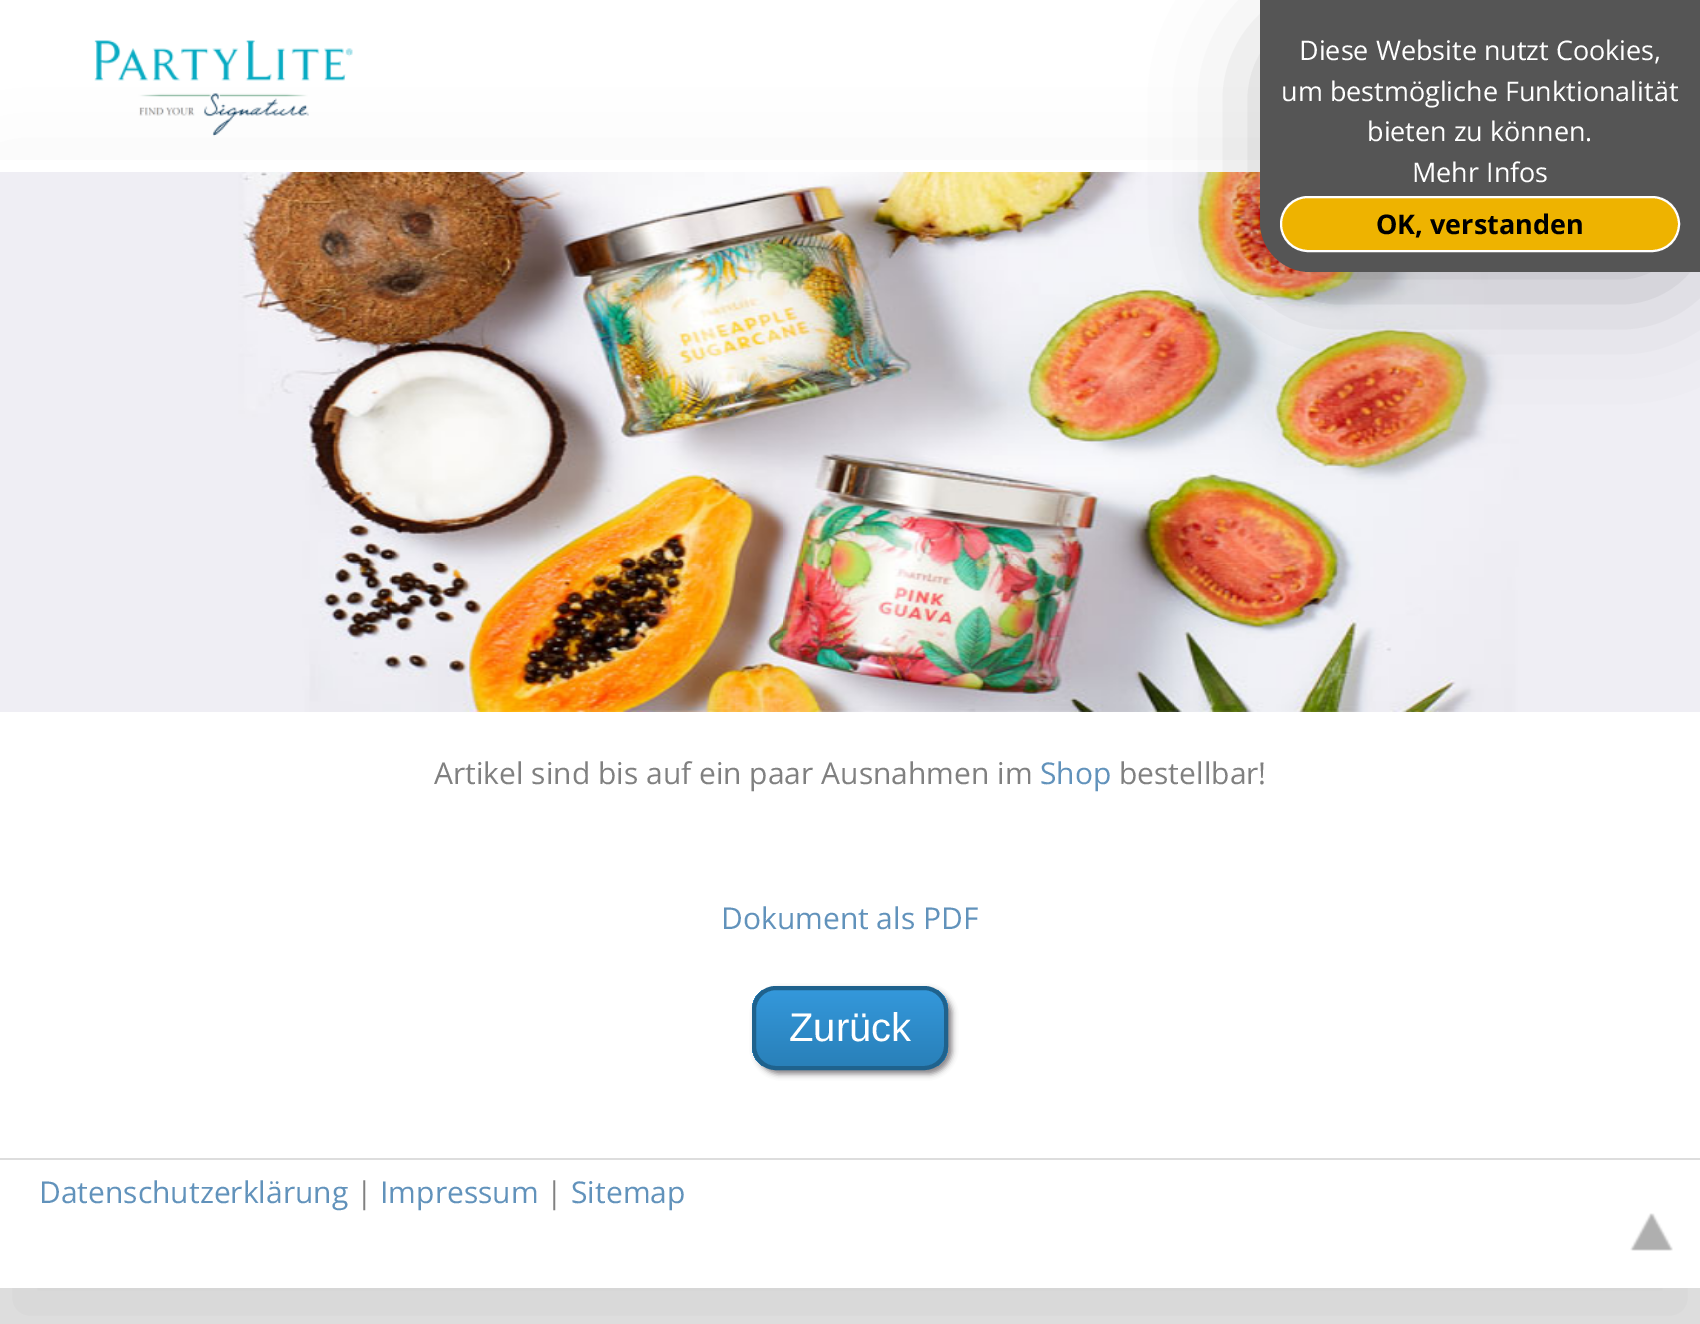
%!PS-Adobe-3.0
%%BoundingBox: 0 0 1700 1324
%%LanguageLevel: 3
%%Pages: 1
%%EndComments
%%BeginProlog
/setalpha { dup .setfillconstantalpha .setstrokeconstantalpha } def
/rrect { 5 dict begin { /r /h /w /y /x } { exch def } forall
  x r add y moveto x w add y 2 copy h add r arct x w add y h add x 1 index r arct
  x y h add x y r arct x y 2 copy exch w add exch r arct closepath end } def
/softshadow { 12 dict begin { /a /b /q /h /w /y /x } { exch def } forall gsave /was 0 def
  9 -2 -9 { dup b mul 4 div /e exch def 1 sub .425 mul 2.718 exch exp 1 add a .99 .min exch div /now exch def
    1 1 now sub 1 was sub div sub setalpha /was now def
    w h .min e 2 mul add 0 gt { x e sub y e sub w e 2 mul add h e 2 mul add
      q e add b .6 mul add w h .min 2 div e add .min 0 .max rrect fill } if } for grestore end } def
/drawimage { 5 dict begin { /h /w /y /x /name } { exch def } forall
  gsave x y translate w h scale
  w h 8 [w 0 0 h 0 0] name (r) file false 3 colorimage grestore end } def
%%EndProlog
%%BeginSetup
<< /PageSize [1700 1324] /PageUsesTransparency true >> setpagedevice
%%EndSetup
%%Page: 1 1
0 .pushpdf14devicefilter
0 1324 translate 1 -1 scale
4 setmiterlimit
0.914 setgray
0 0 1700 1324 rectfill
1 setgray
0 0 1260 160 rectfill
(images/1.raw) 94 40 259 97 drawimage
0 setgray
0 200 1700 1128 0 50 0.1 softshadow
1 setgray
0 160 1700 1128 rectfill
(images/2.raw) 0 172 1700 540 drawimage
0 setgray
1260 20 440 272 50 50 0.2 softshadow
0.333 setgray
newpath 1260 0 moveto 1700 0 lineto 1700 272 lineto 1310 272 lineto 1282.5 272 1260 249.5 1260 222 curveto closepath fill
0.933 0.702 0 setrgbcolor
1281 197 398 54 27 rrect gsave fill grestore
1 setgray
2 setlinewidth
stroke
0.522 0.51 0.522 setrgbcolor
756 990 196 84 24 3 1 softshadow
gsave
752 986 196 84 24 rrect clip newpath
gsave newpath 752 990 moveto 948 990 lineto 948 1066 lineto 752 1066 lineto closepath clip newpath
<< /ShadingType 2 /ColorSpace /DeviceRGB /Coords [850 990 850 1066] /Extend [true true] /Function << /FunctionType 2 /Domain [0 1] /C0 [0.204 0.596 0.859] /C1 [0.161 0.502 0.725] /N 1 >> >> shfill grestore
grestore
0.122 0.384 0.553 setrgbcolor
4 setlinewidth
754 988 192 80 22 rrect stroke
0.867 setgray
0 1158 1700 2 rectfill
(images/3.raw) 1630 1213 43 38 drawimage
/OpenSans-Regular [27 0 0 -27 0 0] selectfont
1 setgray
1299 60 moveto (Diese Website nutzt Cookies,) show
1281 101 moveto (um bestmögliche Funktionalität) show
1367 141 moveto (bieten zu können.) show
1412 182 moveto (Mehr Infos) show
/OpenSans-Bold [27 0 0 -27 0 0] selectfont
0 setgray
1376 234 moveto (OK, verstanden) show
/OpenSans-Regular [30 0 0 -30 0 0] selectfont
0.502 setgray
434 784 moveto (Artikel sind bis auf ein paar Ausnahmen im) show
0.38 0.573 0.733 setrgbcolor
1040 784 moveto (Shop) show
0.502 setgray
1119 784 moveto (bestellbar!) show
0.38 0.573 0.733 setrgbcolor
721 929 moveto (Dokument als PDF) show
/LiberationSans-Regular [40 0 0 -40 0 0] selectfont
1 setgray
789 1041 moveto (Zurück) show
/OpenSans-Regular [30 0 0 -30 0 0] selectfont
0.38 0.573 0.733 setrgbcolor
39 1203 moveto (Datenschutzerklärung) show
0.502 setgray
356 1203 moveto (|) show
0.38 0.573 0.733 setrgbcolor
380 1203 moveto (Impressum) show
0.502 setgray
546 1203 moveto (|) show
0.38 0.573 0.733 setrgbcolor
571 1203 moveto (Sitemap) show
.poppdf14devicefilter showpage
%%EOF
